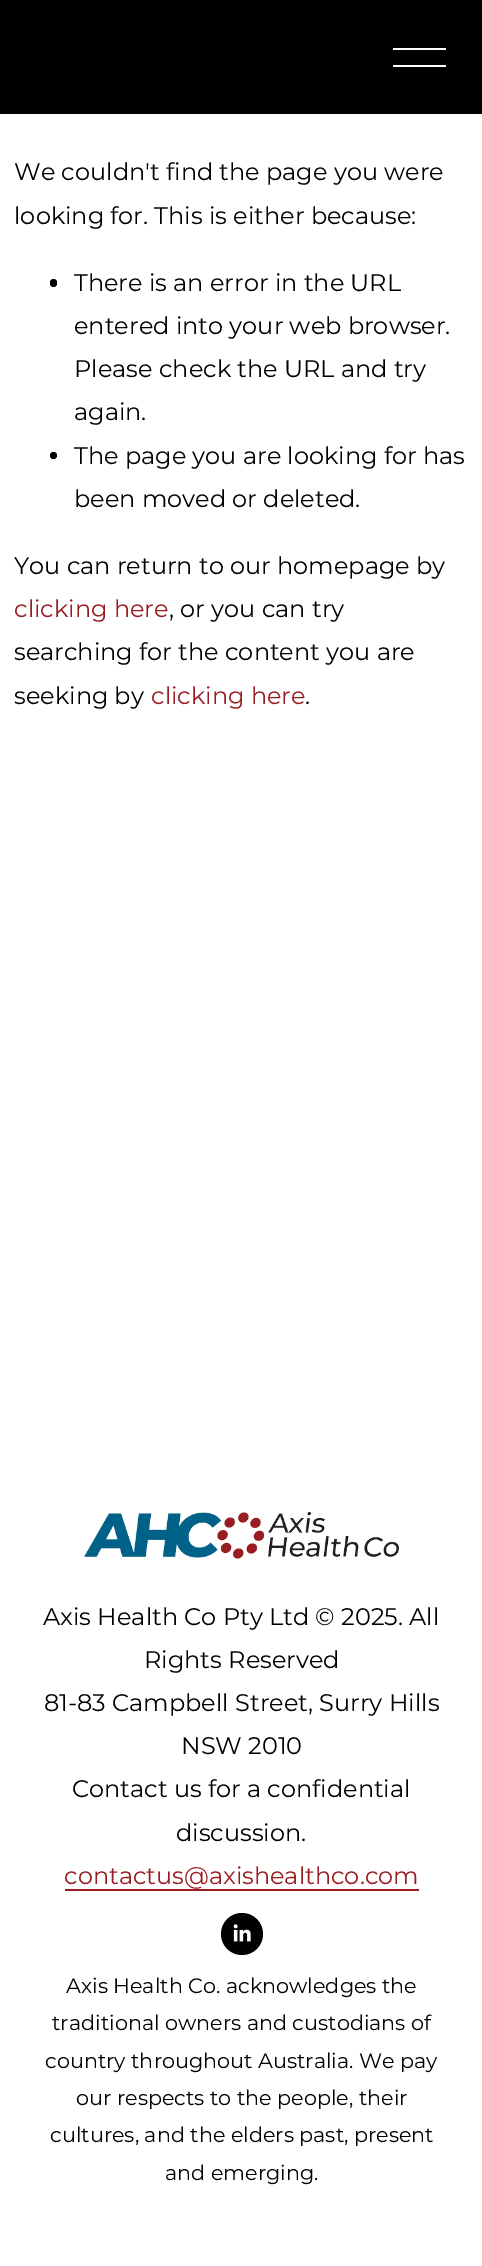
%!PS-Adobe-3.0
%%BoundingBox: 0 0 482 2266
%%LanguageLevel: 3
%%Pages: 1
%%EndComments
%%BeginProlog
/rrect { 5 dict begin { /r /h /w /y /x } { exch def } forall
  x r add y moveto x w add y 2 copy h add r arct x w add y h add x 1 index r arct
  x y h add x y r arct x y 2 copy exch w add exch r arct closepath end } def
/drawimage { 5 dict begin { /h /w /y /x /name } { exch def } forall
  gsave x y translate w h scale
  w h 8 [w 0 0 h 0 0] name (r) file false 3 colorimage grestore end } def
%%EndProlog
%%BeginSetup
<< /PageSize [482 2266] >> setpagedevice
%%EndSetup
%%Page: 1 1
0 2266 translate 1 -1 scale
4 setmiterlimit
1 setgray
0 0 482 2266 rectfill
0 setgray
0 0 482 114 rectfill
1 setgray
393 48 53 2 rectfill
393 65 53 2 rectfill
0 setgray
50 279 7 8 3.5 rrect fill
newpath 53.5 455.5 3.5 0 360 arc closepath fill
(images/1.raw) 84 1512 315 47 drawimage
0.596 0.11 0.125 setrgbcolor
65 1889 354 2 rectfill
0 setgray
newpath 242 1934 21 0 360 arc closepath fill
(images/2.raw) 233 1924 18 18 drawimage
/Montserrat-Regular [24 0 0 -24 0 0] selectfont
14 180 moveto (We couldn't find the page you were) show
14 224 moveto (looking for. This is either because:) show
74 291 moveto (There is an error in the URL) show
74 334 moveto (entered into your web browser.) show
74 377 moveto (Please check the URL and try) show
74 420 moveto (again.) show
74 464 moveto (The page you are looking for has) show
74 507 moveto (been moved or deleted.) show
14 574 moveto (You can return to our homepage by) show
0.596 0.11 0.125 setrgbcolor
14 617 moveto (clicking here) show
0 setgray
169 617 moveto (, or you can try) show
14 660 moveto (searching for the content you are) show
14 704 moveto (seeking by) show
0.596 0.11 0.125 setrgbcolor
151 704 moveto (clicking here) show
0 setgray
305 704 moveto (.) show
43 1625 moveto (Axis Health Co Pty Ltd © 2025. All) show
144 1668 moveto (Rights Reserved) show
44 1711 moveto (81-83 Campbell Street, Surry Hills) show
181 1754 moveto (NSW 2010) show
72 1797 moveto (Contact us for a confidential) show
176 1841 moveto (discussion.) show
0.596 0.11 0.125 setrgbcolor
64 1884 moveto (contactus@axishealthco.com) show
/Montserrat-Regular [20.75 0 0 -20.75 0 0] selectfont
0 setgray
66 1993 moveto (Axis Health Co. acknowledges the) show
52 2030 moveto (traditional owners and custodians of) show
45 2068 moveto (country throughout Australia. We pay) show
76 2105 moveto (our respects to the people, their) show
50 2142 moveto (cultures, and the elders past, present) show
165 2180 moveto (and emerging.) show
showpage
%%EOF
